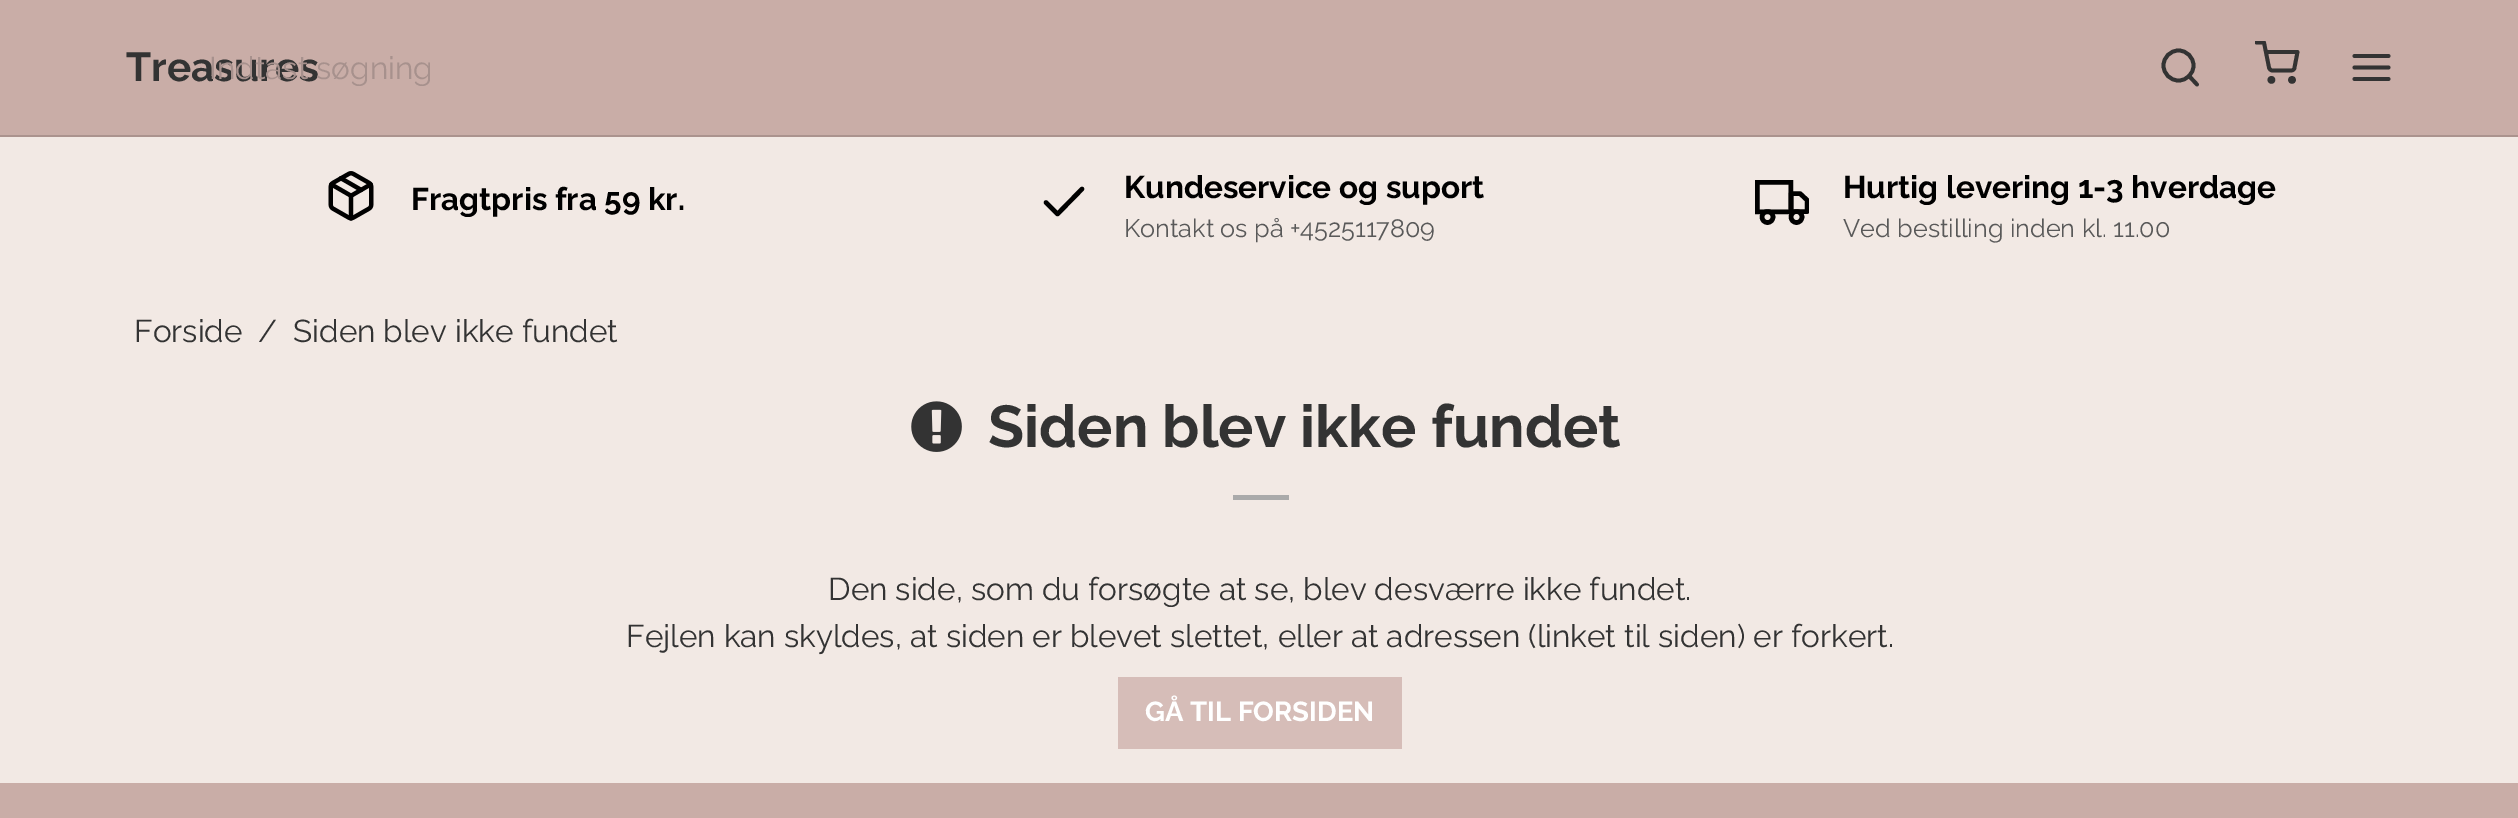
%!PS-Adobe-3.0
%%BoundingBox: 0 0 2518 818
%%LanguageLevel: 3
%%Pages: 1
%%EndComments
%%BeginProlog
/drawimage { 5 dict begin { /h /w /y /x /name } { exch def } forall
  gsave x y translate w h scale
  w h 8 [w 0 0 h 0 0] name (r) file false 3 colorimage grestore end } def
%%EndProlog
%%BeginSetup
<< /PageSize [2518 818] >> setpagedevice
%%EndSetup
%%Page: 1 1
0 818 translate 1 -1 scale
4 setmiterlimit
0.949 0.914 0.894 setrgbcolor
0 0 2518 818 rectfill
0.788 0.678 0.655 setrgbcolor
0 0 2518 135 rectfill
0.671 0.576 0.557 setrgbcolor
0 135 2518 2 rectfill
0.2 setgray
3.8 setlinewidth
newpath 2178.5 65.5 15 0 360 arc closepath stroke
1 setlinecap
1 setlinejoin
newpath 2197 84.5 moveto 2189 76 lineto stroke
gsave
2255 41 45 45 rectclip
newpath 2256.5 42.5 moveto 2264 42.5 lineto 2269 67.5 lineto 2269.5 69.5 2271 70.5 2272.5 70.5 curveto 2291 70.5 lineto 2292.5 70.5 2294.5 69.5 2294.5 67.5 curveto 2297.5 52 lineto 2266 52 lineto stroke
grestore
0 setlinecap
0 setlinejoin
newpath 2271.4 79.9 1.9 0 360 arc closepath stroke
newpath 2292 79.9 1.9 0 360 arc closepath stroke
1 setlinecap
1 setlinejoin
newpath 2354.5 67.5 moveto 2388.5 67.5 lineto 2354.5 56 moveto 2388.5 56 lineto 2354.5 79 moveto 2388.5 79 lineto stroke
(images/1.raw) 328 171 46 50 drawimage
0 setgray
4.5 setlinewidth
newpath 1082 189 moveto 1057.5 214 lineto 1046 202.5 lineto stroke
0 setlinecap
0 setlinejoin
1757.25 182.25 33.5 29.5 rectstroke
gsave
1755 176 54 54 rectclip
1 setlinecap
1 setlinejoin
newpath 1791 193.5 moveto 1800 193.5 lineto 1807 200 lineto 1807 211.5 lineto 1791 211.5 lineto closepath stroke
grestore
newpath 1767.5 217 5.5 0 360 arc closepath stroke
newpath 1796.5 217 5.5 0 360 arc closepath stroke
(images/2.raw) 911 401 51 51 drawimage
0.667 setgray
1233 495 56 5 rectfill
0.839 0.741 0.722 setrgbcolor
1118 677 284 72 rectfill
0.788 0.678 0.655 setrgbcolor
0 783 2518 35 rectfill
/Raleway-Bold [40.5 0 0 -40.5 0 0] selectfont
0.2 setgray
126 81 moveto (Treasures) show
/Raleway-Regular [31.5 0 0 -31.5 0 0] selectfont
0.655 0.569 0.553 setrgbcolor
209 79 moveto (Indtast søgning) show
/Raleway-Bold [31.5 0 0 -31.5 0 0] selectfont
0 setgray
411 210 moveto (Fragtpris fra 59 kr.) show
1124 198 moveto (Kundeservice og suport) show
/Raleway-Regular [25.25 0 0 -25.25 0 0] selectfont
0.349 setgray
1124 237 moveto (Kontakt os på +4525117809) show
/Raleway-Bold [31.5 0 0 -31.5 0 0] selectfont
0 setgray
1843 198 moveto (Hurtig levering 1-3 hverdage) show
/Raleway-Regular [25.25 0 0 -25.25 0 0] selectfont
0.349 setgray
1843 237 moveto (Ved bestilling inden kl. 11.00) show
/Raleway-Regular [31.5 0 0 -31.5 0 0] selectfont
0.2 setgray
134 342 moveto (Forside) show
258 342 moveto (/) show
293 342 moveto (Siden blev ikke fundet) show
/Raleway-Bold [59 0 0 -59 0 0] selectfont
988 447 moveto (Siden blev ikke fundet) show
/Raleway-Regular [31.5 0 0 -31.5 0 0] selectfont
828 600 moveto (Den side, som du forsøgte at se, blev desværre ikke fundet.) show
626 647 moveto (Fejlen kan skyldes, at siden er blevet slettet, eller at adressen \(linket til siden\) er forkert.) show
/Raleway-Bold [27.5 0 0 -27.5 0 0] selectfont
1 setgray
1145 721 moveto (GÅ TIL FORSIDEN) show
showpage
%%EOF
